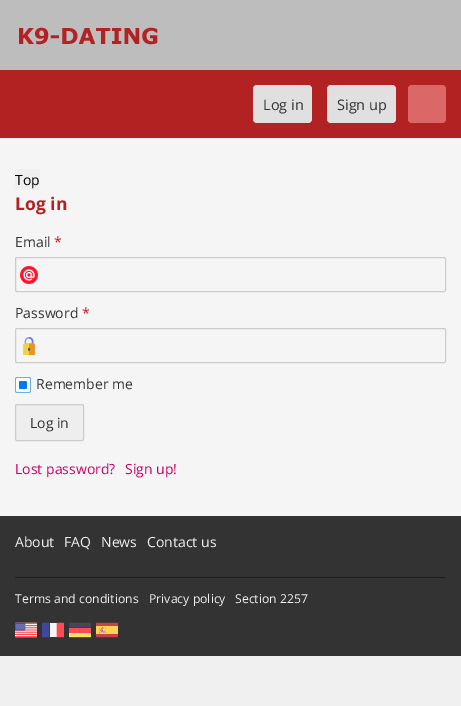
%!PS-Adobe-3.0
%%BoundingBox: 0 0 461 706
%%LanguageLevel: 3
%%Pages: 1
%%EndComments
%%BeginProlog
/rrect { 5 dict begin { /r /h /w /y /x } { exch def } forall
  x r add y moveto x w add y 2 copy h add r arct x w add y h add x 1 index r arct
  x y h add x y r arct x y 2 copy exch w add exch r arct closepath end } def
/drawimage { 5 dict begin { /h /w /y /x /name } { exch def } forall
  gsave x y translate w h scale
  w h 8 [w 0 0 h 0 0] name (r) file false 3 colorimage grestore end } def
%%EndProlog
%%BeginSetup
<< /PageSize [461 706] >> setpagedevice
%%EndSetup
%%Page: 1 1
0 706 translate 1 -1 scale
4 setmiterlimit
0.941 setgray
0 0 461 706 rectfill
0.741 setgray
0 0 461 70 rectfill
(images/1.raw) 19 27 139 18 drawimage
0.698 0.133 0.133 setrgbcolor
0 70 461 68 rectfill
0.878 setgray
253 85 59 38 4 rrect fill
327 85 69 38 4 rrect fill
0.863 0.404 0.404 setrgbcolor
408 85 38 38 4 rrect fill
0.961 setgray
0 138 461 378 rectfill
0.937 setgray
15 169 25 21 rectfill
(images/2.raw) 20 266 18 18 drawimage
0.8 setgray
15.5 257.5 430 34 1.5 rrect stroke
(images/3.raw) 23 337 12 18 drawimage
15.5 328.5 430 34 1.5 rrect stroke
(images/4.raw) 15 377 16 16 drawimage
0.933 setgray
15.5 404.5 68 36 1.5 rrect gsave fill grestore
0.8 setgray
stroke
0.2 setgray
0 516 461 140 rectfill
0.122 setgray
15 577 431 1 rectfill
(images/5.raw) 15 622 22 16 drawimage
(images/6.raw) 42 622 22 16 drawimage
(images/7.raw) 69 622 22 16 drawimage
(images/8.raw) 96 622 22 16 drawimage
/OpenSans-Regular [14.5 0 0 -14.5 0 0] selectfont
0.2 setgray
263 110 moveto (Log in) show
337 110 moveto (Sign up) show
/OpenSans-Regular [14 0 0 -14 0 0] selectfont
0 setgray
15 185 moveto (Top) show
/NotoSans-Bold [17.5 0 0 -17.5 0 0] selectfont
0.698 0.133 0.133 setrgbcolor
15 210 moveto (L) show
/OpenSans-Bold [17.5 0 0 -17.5 0 0] selectfont
25 210 moveto (og in) show
/OpenSans-Regular [14 0 0 -14 0 0] selectfont
0.2 setgray
15 247 moveto (Email) show
0.816 0.055 0.071 setrgbcolor
54 247 moveto (*) show
0.2 setgray
15 318 moveto (Password) show
0.816 0.055 0.071 setrgbcolor
82 318 moveto (*) show
0.2 setgray
36 389 moveto (Remember me) show
30 428 moveto (Log in) show
0.8 0 0.4 setrgbcolor
15 474 moveto (Lost password?) show
125 474 moveto (Sign up!) show
0.941 setgray
15 547 moveto (About) show
64 547 moveto (FAQ) show
101 547 moveto (News) show
147 547 moveto (Contact us) show
/OpenSans-Regular [12.25 0 0 -12.25 0 0] selectfont
15 603 moveto (Terms and conditions) show
149 603 moveto (Privacy policy) show
235 603 moveto (Section 2257) show
showpage
%%EOF
